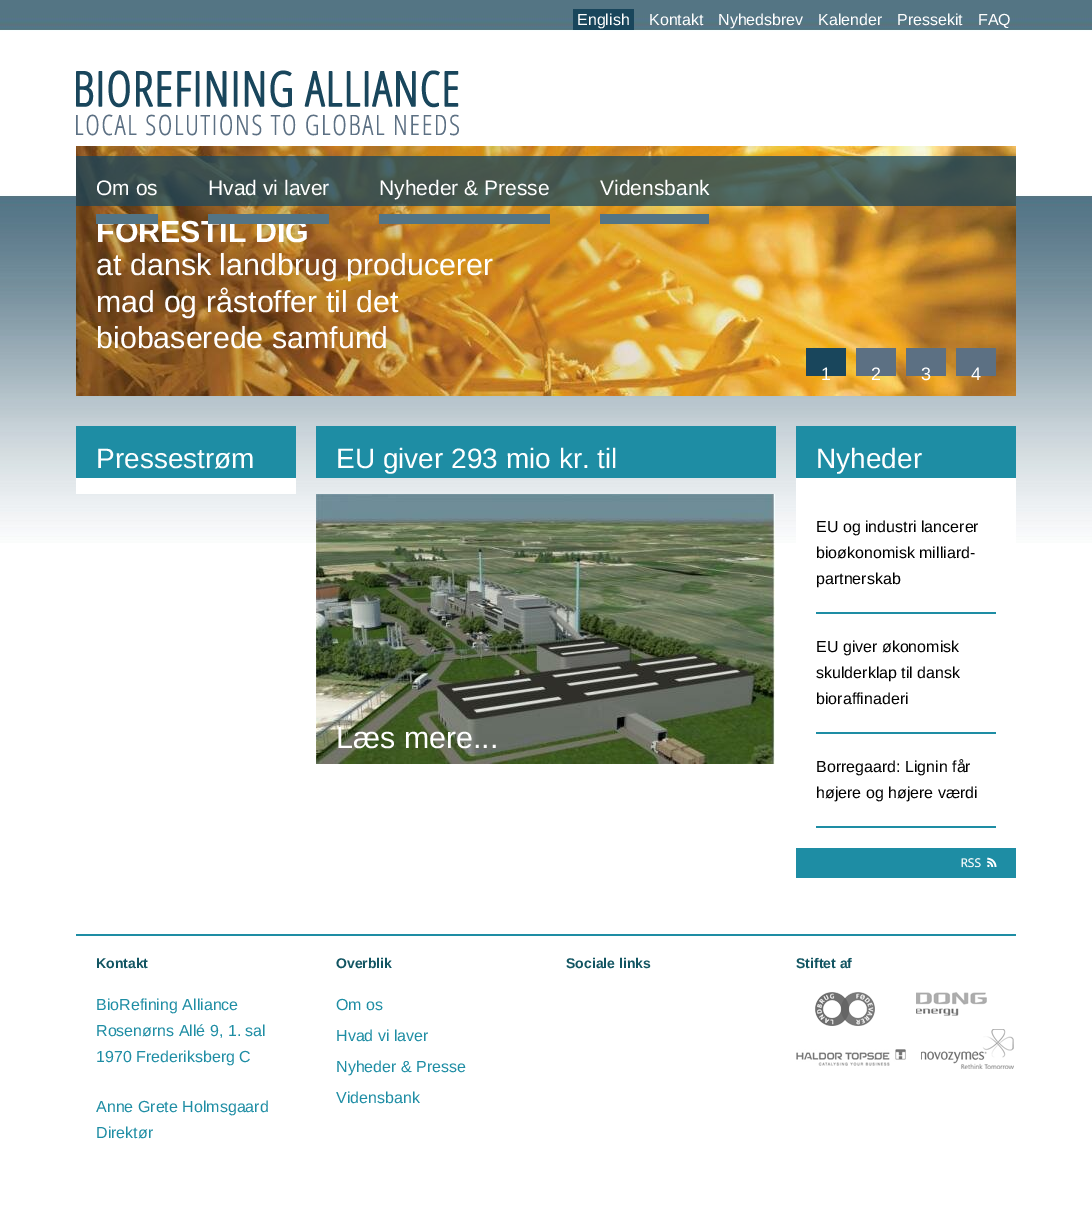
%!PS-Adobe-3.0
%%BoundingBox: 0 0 1092 1223
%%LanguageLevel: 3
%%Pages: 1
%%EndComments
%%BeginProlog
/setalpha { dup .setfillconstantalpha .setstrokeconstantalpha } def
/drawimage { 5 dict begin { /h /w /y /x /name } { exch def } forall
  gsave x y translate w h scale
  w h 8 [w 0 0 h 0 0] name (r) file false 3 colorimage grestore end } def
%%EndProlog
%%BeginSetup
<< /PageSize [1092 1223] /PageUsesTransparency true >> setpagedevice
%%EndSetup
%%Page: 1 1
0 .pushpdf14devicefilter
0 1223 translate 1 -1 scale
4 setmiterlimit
1 setgray
0 0 1092 1223 rectfill
(images/1.raw) 0 0 1092 543 drawimage
0.098 0.275 0.361 setrgbcolor
573 9 61 21 rectfill
(images/2.raw) 76 70 383 66 drawimage
(images/3.raw) 76 146 940 250 drawimage
0.75 setalpha
0.098 0.271 0.361 setrgbcolor
76 156 940 50 rectfill
1 setalpha
0.325 0.455 0.522 setrgbcolor
379 214 171 10 rectfill
600 214 109 10 rectfill
0.098 0.275 0.361 setrgbcolor
806 348 40 28 rectfill
0.361 0.439 0.514 setrgbcolor
856 348 40 28 rectfill
906 348 40 28 rectfill
956 348 40 28 rectfill
1 setgray
76 478 220 16 rectfill
0.118 0.553 0.643 setrgbcolor
76 426 220 52 rectfill
316 426 460 52 rectfill
(images/4.raw) 316 494 459 270 drawimage
1 setgray
796 478 220 65 rectfill
0.118 0.553 0.643 setrgbcolor
796 426 220 52 rectfill
816 612 180 2 rectfill
816 732 180 2 rectfill
816 826 180 2 rectfill
(images/5.raw) 796 848 220 30 drawimage
76 934 940 2 rectfill
(images/6.raw) 796 992 218 77 drawimage
/LiberationSans-Regular [16 0 0 -16 0 0] selectfont
1 setgray
577 25 moveto (English) show
649 25 moveto (Kontakt) show
718 25 moveto (Nyhedsbrev) show
818 25 moveto (Kalender) show
897 25 moveto (Pressekit) show
978 25 moveto (FAQ) show
/LiberationSans-Regular [21 0 0 -21 0 0] selectfont
96 195 moveto (Om os) show
208 195 moveto (Hvad vi laver) show
379 195 moveto (Nyheder & Presse) show
600 195 moveto (Vidensbank) show
/LiberationSans-Bold [30.4 0 0 -30.4 0 0] selectfont
96 242 moveto (FORESTIL DIG) show
0.325 0.455 0.522 setrgbcolor
208 214 121 10 rectfill
96 214 62 10 rectfill
/LiberationSans-Regular [30.4 0 0 -30.4 0 0] selectfont
1 setgray
96 275 moveto (at dansk landbrug producerer) show
96 312 moveto (mad og råstoffer til det) show
96 348 moveto (biobaserede samfund) show
/LiberationSans-Regular [18 0 0 -18 0 0] selectfont
821 380 moveto (1) show
871 380 moveto (2) show
921 380 moveto (3) show
971 380 moveto (4) show
/LiberationSans-Regular [28 0 0 -28 0 0] selectfont
96 468 moveto (Pressestrøm) show
336 468 moveto (EU giver 293 mio kr. til) show
/LiberationSans-Regular [30.4 0 0 -30.4 0 0] selectfont
336 748 moveto (Læs mere...) show
/LiberationSans-Regular [28 0 0 -28 0 0] selectfont
816 468 moveto (Nyheder) show
/LiberationSans-Regular [16 0 0 -16 0 0] selectfont
0 setgray
816 532 moveto (EU og industri lancerer) show
816 558 moveto (bioøkonomisk milliard-) show
816 584 moveto (partnerskab) show
816 652 moveto (EU giver økonomisk) show
816 678 moveto (skulderklap til dansk) show
816 704 moveto (bioraffinaderi) show
816 772 moveto (Borregaard: Lignin får) show
816 798 moveto (højere og højere værdi) show
/LiberationSans-Bold [14 0 0 -14 0 0] selectfont
0.071 0.333 0.384 setrgbcolor
96 968 moveto (Kontakt) show
/LiberationSans-Regular [16 0 0 -16 0 0] selectfont
0.118 0.553 0.643 setrgbcolor
96 1010 moveto (BioRefining Alliance) show
96 1036 moveto (Rosenørns Allé 9, 1. sal) show
96 1062 moveto (1970 Frederiksberg C) show
96 1112 moveto (Anne Grete Holmsgaard) show
96 1138 moveto (Direktør) show
/LiberationSans-Bold [14 0 0 -14 0 0] selectfont
0.071 0.333 0.384 setrgbcolor
336 968 moveto (Overblik) show
/LiberationSans-Regular [16 0 0 -16 0 0] selectfont
0.118 0.553 0.643 setrgbcolor
336 1010 moveto (Om os) show
336 1041 moveto (Hvad vi laver) show
336 1072 moveto (Nyheder & Presse) show
336 1103 moveto (Vidensbank) show
/LiberationSans-Bold [14 0 0 -14 0 0] selectfont
0.071 0.333 0.384 setrgbcolor
566 968 moveto (Sociale links) show
796 968 moveto (Stiftet af) show
.poppdf14devicefilter showpage
%%EOF
